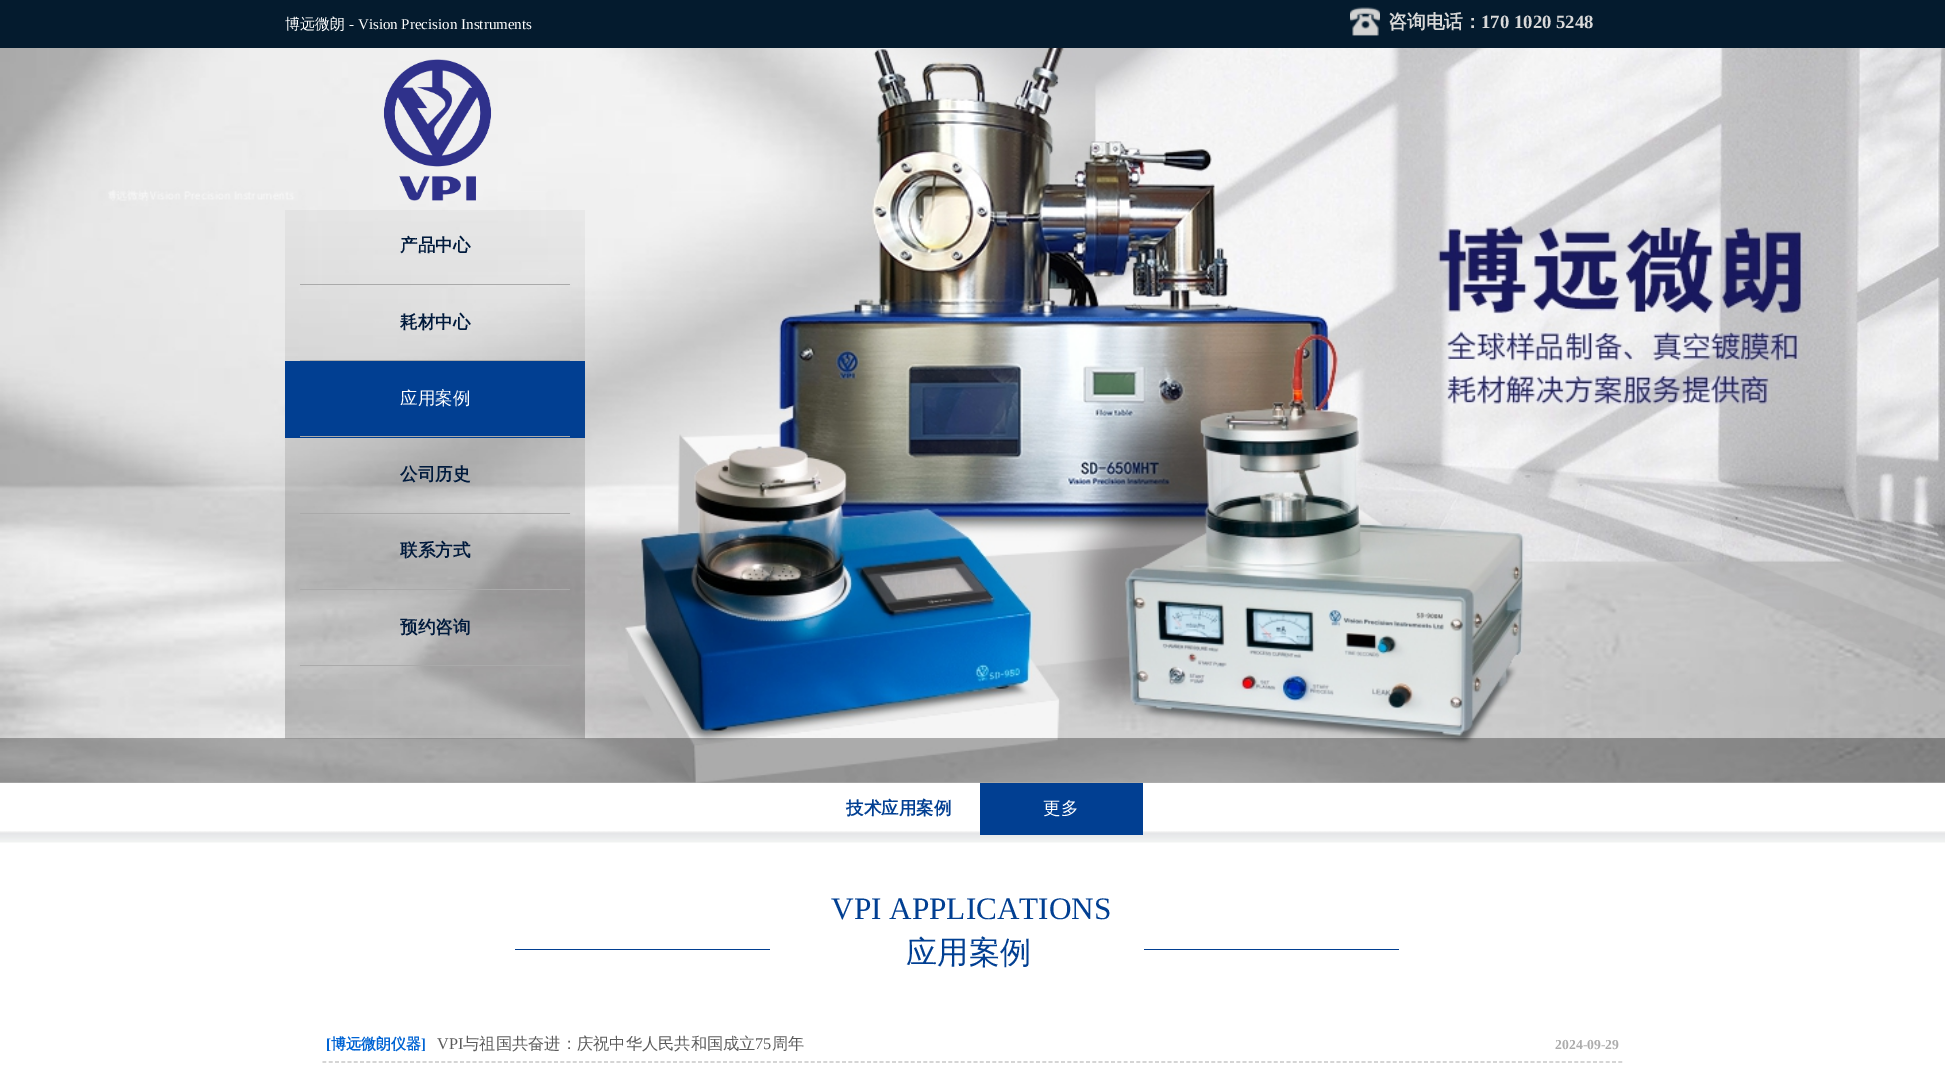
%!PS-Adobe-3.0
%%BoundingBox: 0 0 1945 1075
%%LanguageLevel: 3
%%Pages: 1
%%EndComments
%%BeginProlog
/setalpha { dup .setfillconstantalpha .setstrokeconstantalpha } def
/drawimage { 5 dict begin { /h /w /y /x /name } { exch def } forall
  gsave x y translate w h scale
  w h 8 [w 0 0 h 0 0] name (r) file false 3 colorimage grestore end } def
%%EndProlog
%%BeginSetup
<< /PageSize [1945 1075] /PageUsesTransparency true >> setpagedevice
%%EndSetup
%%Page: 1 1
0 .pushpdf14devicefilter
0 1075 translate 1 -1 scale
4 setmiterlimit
1 setgray
0 0 1945 1075 rectfill
0.016 0.106 0.18 setrgbcolor
0 0 1945 48 rectfill
(images/1.raw) 1350 7 30 29 drawimage
(images/2.raw) 0 48 1945 735 drawimage
(images/3.raw) 383 59 109 142 drawimage
(images/4.raw) 285 210 300 529 drawimage
0.667 setgray
300 284 270 1 rectfill
300 360 270 1 rectfill
0.004 0.247 0.573 setrgbcolor
285 361 300 77 rectfill
0.667 setgray
300 436 270 1 rectfill
300 513 270 1 rectfill
300 589 270 1 rectfill
300 665 270 1 rectfill
0.3 setalpha
0 setgray
0 738 1945 45 rectfill
1 setalpha
(images/5.raw) 0 831 1945 12 drawimage
0.004 0.247 0.573 setrgbcolor
980 783 163 52 rectfill
515 949 255 1 rectfill
1144 949 255 1 rectfill
0.776 setgray
1.2 setlinewidth
[3.75 2.51] 0 setdash
newpath 322.5 1062 moveto 1622.5 1062 lineto stroke
/WenQuanYiZenHei-Medium [15 0 0 -15 0 0] selectfont
1 setgray
285 29 moveto (博远微朗) show
/LiberationSerif-Regular [15 0 0 -15 0 0] selectfont
349 29 moveto (- Vision Precision Instruments) show
/WenQuanYiZenHei-Bold [18.75 0 0 -18.75 0 0] selectfont
0.851 setgray
1388 28 moveto (咨询电话：) show
/LiberationSerif-Bold [18.75 0 0 -18.75 0 0] selectfont
1481 28 moveto (170 1020 5248) show
/WenQuanYiZenHei-Bold [17.5 0 0 -17.5 0 0] selectfont
0 0.102 0.235 setrgbcolor
400 251 moveto (产品中心) show
400 328 moveto (耗材中心) show
/WenQuanYiZenHei-Medium [17.5 0 0 -17.5 0 0] selectfont
1 setgray
400 404 moveto (应用案例) show
/WenQuanYiZenHei-Bold [17.5 0 0 -17.5 0 0] selectfont
0 0.102 0.235 setrgbcolor
400 480 moveto (公司历史) show
400 556 moveto (联系方式) show
400 633 moveto (预约咨询) show
0.004 0.247 0.573 setrgbcolor
846 814 moveto (技术应用案例) show
/WenQuanYiZenHei-Medium [17.5 0 0 -17.5 0 0] selectfont
1 setgray
1043 814 moveto (更多) show
/LiberationSerif-Regular [31.25 0 0 -31.25 0 0] selectfont
0.004 0.247 0.573 setrgbcolor
831 919 moveto (VPI APPLICATIONS) show
/WenQuanYiZenHei-Medium [31.25 0 0 -31.25 0 0] selectfont
906 963 moveto (应用案例) show
/LiberationSerif-Bold [15 0 0 -15 0 0] selectfont
0 0.392 0.831 setrgbcolor
326 1049 moveto ([) show
/WenQuanYiZenHei-Bold [15 0 0 -15 0 0] selectfont
331 1049 moveto (博远微朗仪器) show
/LiberationSerif-Bold [15 0 0 -15 0 0] selectfont
421 1049 moveto (]) show
/LiberationSerif-Regular [16.25 0 0 -16.25 0 0] selectfont
0.353 setgray
437 1049 moveto (VPI) show
/WenQuanYiZenHei-Medium [16.25 0 0 -16.25 0 0] selectfont
463 1049 moveto (与祖国共奋进：庆祝中华人民共和国成立) show
/LiberationSerif-Regular [16.25 0 0 -16.25 0 0] selectfont
755 1049 moveto (75) show
/WenQuanYiZenHei-Medium [16.25 0 0 -16.25 0 0] selectfont
772 1049 moveto (周年) show
/LiberationSerif-Bold [13.75 0 0 -13.75 0 0] selectfont
0.675 setgray
1555 1049 moveto (2024-09-29) show
.poppdf14devicefilter showpage
%%EOF
